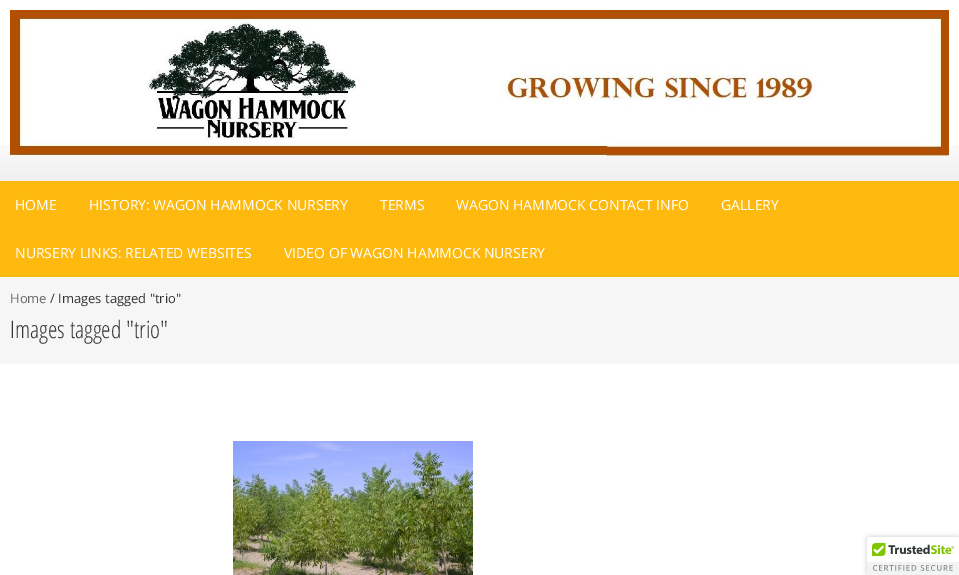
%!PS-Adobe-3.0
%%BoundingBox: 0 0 959 575
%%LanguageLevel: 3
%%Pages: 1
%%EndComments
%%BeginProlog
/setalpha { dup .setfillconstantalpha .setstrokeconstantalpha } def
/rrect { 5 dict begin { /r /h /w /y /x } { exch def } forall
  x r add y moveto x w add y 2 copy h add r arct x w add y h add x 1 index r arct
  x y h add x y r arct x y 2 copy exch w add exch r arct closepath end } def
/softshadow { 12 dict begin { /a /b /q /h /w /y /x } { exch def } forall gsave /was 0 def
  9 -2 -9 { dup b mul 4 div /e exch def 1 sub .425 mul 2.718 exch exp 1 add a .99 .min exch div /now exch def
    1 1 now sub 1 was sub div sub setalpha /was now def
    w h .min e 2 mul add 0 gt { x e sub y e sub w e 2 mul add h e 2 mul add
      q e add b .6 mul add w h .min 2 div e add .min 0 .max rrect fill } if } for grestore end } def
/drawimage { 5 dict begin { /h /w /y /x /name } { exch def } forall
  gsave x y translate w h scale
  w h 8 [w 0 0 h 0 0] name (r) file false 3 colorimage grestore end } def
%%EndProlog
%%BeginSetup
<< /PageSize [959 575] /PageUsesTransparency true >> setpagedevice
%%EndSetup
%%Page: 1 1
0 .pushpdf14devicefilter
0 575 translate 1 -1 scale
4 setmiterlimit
1 setgray
0 0 959 575 rectfill
(images/1.raw) 0 145 959 36 drawimage
(images/2.raw) 10 10 939 146 drawimage
0.996 0.725 0.055 setrgbcolor
0 181 959 96 rectfill
0.965 setgray
0 277 959 87 rectfill
(images/3.raw) 233 441 240 134 drawimage
0 setgray
867 537 92 38 2 2.5 0.2 softshadow
1 setgray
newpath 869 537 moveto 959 537 lineto 959 575 lineto 867 575 lineto 867 539 lineto 867 538 868 537 869 537 curveto closepath fill
(images/4.raw) 867 537 92 38 drawimage
/OpenSans-Regular [14 0 0 -14 0 0] selectfont
15 210 moveto (HOME) show
89 210 moveto (HISTORY: WAGON HAMMOCK NURSERY) show
380 210 moveto (TERMS) show
456 210 moveto (WAGON HAMMOCK CONTACT INFO) show
721 210 moveto (GALLERY) show
15 258 moveto (NURSERY LINKS: RELATED WEBSITES) show
284 258 moveto (VIDEO OF WAGON HAMMOCK NURSERY) show
/OpenSans-Regular [13 0 0 -13 0 0] selectfont
0.4 setgray
10 303 moveto (Home) show
0.2 setgray
50 303 moveto (/ Images tagged "trio") show
/OpenSansCondensed-Light [24 0 0 -24 0 0] selectfont
10 338 moveto (Images tagged "trio") show
.poppdf14devicefilter showpage
%%EOF
